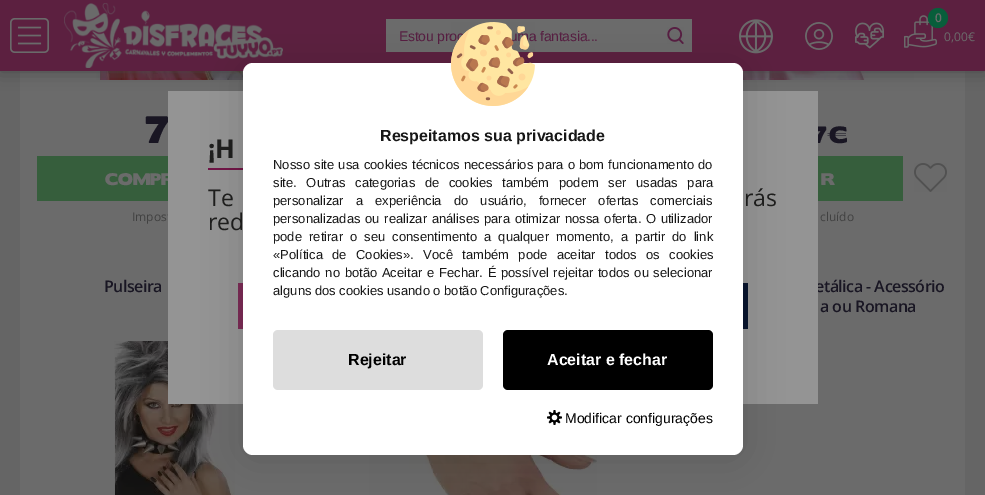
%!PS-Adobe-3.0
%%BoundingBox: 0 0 985 495
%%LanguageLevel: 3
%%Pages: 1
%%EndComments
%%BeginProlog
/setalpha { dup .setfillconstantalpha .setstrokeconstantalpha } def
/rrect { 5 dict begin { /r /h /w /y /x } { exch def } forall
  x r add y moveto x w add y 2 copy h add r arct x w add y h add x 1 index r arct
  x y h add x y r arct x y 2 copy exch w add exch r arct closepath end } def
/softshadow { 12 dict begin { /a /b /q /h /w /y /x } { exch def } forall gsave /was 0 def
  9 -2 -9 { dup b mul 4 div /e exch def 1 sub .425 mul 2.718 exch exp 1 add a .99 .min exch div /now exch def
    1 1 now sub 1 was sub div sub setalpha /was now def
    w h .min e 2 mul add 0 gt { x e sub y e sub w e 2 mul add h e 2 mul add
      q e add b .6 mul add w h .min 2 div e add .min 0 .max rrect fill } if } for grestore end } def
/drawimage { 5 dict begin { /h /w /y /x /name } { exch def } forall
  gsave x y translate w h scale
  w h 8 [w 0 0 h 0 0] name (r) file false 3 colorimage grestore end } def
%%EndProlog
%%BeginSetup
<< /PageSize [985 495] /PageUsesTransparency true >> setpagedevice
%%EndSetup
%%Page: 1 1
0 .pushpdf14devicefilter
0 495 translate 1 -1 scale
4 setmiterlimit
0.396 setgray
0 0 985 495 rectfill
0.42 setgray
20 71 223 183 rectfill
(images/8.raw) 96 71 148 9 drawimage
743 71 222 183 rectfill
(images/9.raw) 742 71 172 9 drawimage
0.275 setgray
0 0 985 71 0 9 1 softshadow
0.361 0.125 0.251 setrgbcolor
0 0 985 71 rectfill
(images/1.raw) 10 18 39 35 drawimage
(images/2.raw) 64 3 219 65 drawimage
0.42 setgray
386 19 306 33 rectfill
(images/3.raw) 667 27 17 17 drawimage
(images/4.raw) 739 19 34 35 drawimage
(images/5.raw) 805 22 28 28 drawimage
(images/6.raw) 855 22 29 27 drawimage
(images/7.raw) 904 15 33 33 drawimage
0.031 0.369 0.231 setrgbcolor
newpath 938 18 10 0 360 arc closepath fill
0.212 0.369 0.235 setrgbcolor
37 156 131 45 rectfill
818 156 85 45 rectfill
(images/10.raw) 914 163 33 29 drawimage
0.42 setgray
20 254 315 241 rectfill
(images/11.raw) 114 341 121 154 drawimage
650 254 315 241 rectfill
335 455 315 40 rectfill
(images/12.raw) 369 455 228 40 drawimage
/LiberationSans-Regular [14 0 0 -14 0 0] selectfont
0.341 0.118 0.259 setrgbcolor
399 41 moveto -0.25 0 (Estou proc) ashow
510 41 moveto -0.25 0 (uma fantasia...) ashow
/OpenSans-SemiBold [12 0 0 -12 0 0] selectfont
0.42 setgray
935 22 moveto (0) show
/OpenSans-Regular [12 0 0 -12 0 0] selectfont
944 41 moveto (0,00€) show
/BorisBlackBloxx-Black [34 0 0 -34 0 0] selectfont
0.098 0.086 0.137 setrgbcolor
145 143 moveto (7) show
/BorisBlackBloxx-Black [15 0 0 -15 0 0] selectfont
0.42 setgray
105 185 moveto (COMPR) show
/OpenSans-Regular [12 0 0 -12 0 0] selectfont
0.255 setgray
132 221 moveto (Impost) show
/BorisBlackBloxx-Black [21 0 0 -21 0 0] selectfont
0.098 0.086 0.137 setrgbcolor
812 143 moveto (7€) show
/BorisBlackBloxx-Black [15 0 0 -15 0 0] selectfont
0.42 setgray
821 185 moveto (R) show
/OpenSans-Regular [12 0 0 -12 0 0] selectfont
0.255 setgray
820 221 moveto (cluído) show
/OpenSans-SemiBold [16 0 0 -16 0 0] selectfont
0.098 0.086 0.137 setrgbcolor
104 292 moveto -0.5 0 (Pulseira) ashow
815 292 moveto -0.5 0 (etálica - Acessório) ashow
820 312 moveto -0.5 0 (a ou Romana) ashow
0.58 setgray
168 91 650 313 rectfill
/OpenSans-Bold [26 0 0 -26 0 0] selectfont
0.118 0.118 0.114 setrgbcolor
208 158 moveto (¡H) show
0.439 0.082 0.278 setrgbcolor
208 168 35 2 rectfill
/OpenSans-Regular [23 0 0 -23 0 0] selectfont
0.118 0.118 0.114 setrgbcolor
208 206 moveto 1 0 32 (Te) widthshow
744 206 moveto 1 0 32 (rás) widthshow
208 230 moveto (red) show
0.482 0.169 0.337 setrgbcolor
238 283 5 46 rectfill
0.031 0.078 0.18 setrgbcolor
743 283 5 46 rectfill
0 setgray
243 67 500 392 10 19 0.15 softshadow
1 setgray
243 63 500 392 10 rrect fill
(images/14.raw) 547 410 15 15 drawimage
/LiberationSans-Regular [14 0 0 -14 0 0] selectfont
0 setgray
565 423 moveto (Modificar configurações) show
503 330 210 60 5 rrect fill
/LiberationSans-Bold [16 0 0 -16 0 0] selectfont
1 setgray
547 365 moveto (Aceitar e fechar) show
0.867 setgray
273 330 210 60 5 rrect fill
0 setgray
348 365 moveto (Rejeitar) show
/LiberationSans-Regular [13 0 0 -13 0 0] selectfont
0.09 setgray
273 295 moveto (alguns dos cookies usando o botão Configurações.) show
273 277 moveto 1.1 0 32 (clicando no botão Aceitar e Fechar. É possível rejeitar todos ou selecionar) widthshow
273 259 moveto 5.75 0 32 («Política de Cookies». Você também pode aceitar todos os cookies) widthshow
273 241 moveto 3.5 0 32 (pode retirar o seu consentimento a qualquer momento, a partir do link) widthshow
273 223 moveto 1.1 0 32 (personalizadas ou realizar análises para otimizar nossa oferta. O utilizador) widthshow
273 205 moveto 8.5 0 32 (personalizar a experiência do usuário, fornecer ofertas comerciais) widthshow
273 187 moveto 6 0 32 (site. Outras categorias de cookies também podem ser usadas para) widthshow
273 169 moveto 0.6 0 32 (Nosso site usa cookies técnicos necessários para o bom funcionamento do) widthshow
/LiberationSans-Bold [16 0 0 -16 0 0] selectfont
380 141 moveto (Respeitamos sua privacidade) show
(images/13.raw) 451 22 84 84 drawimage
.poppdf14devicefilter showpage
%%EOF
